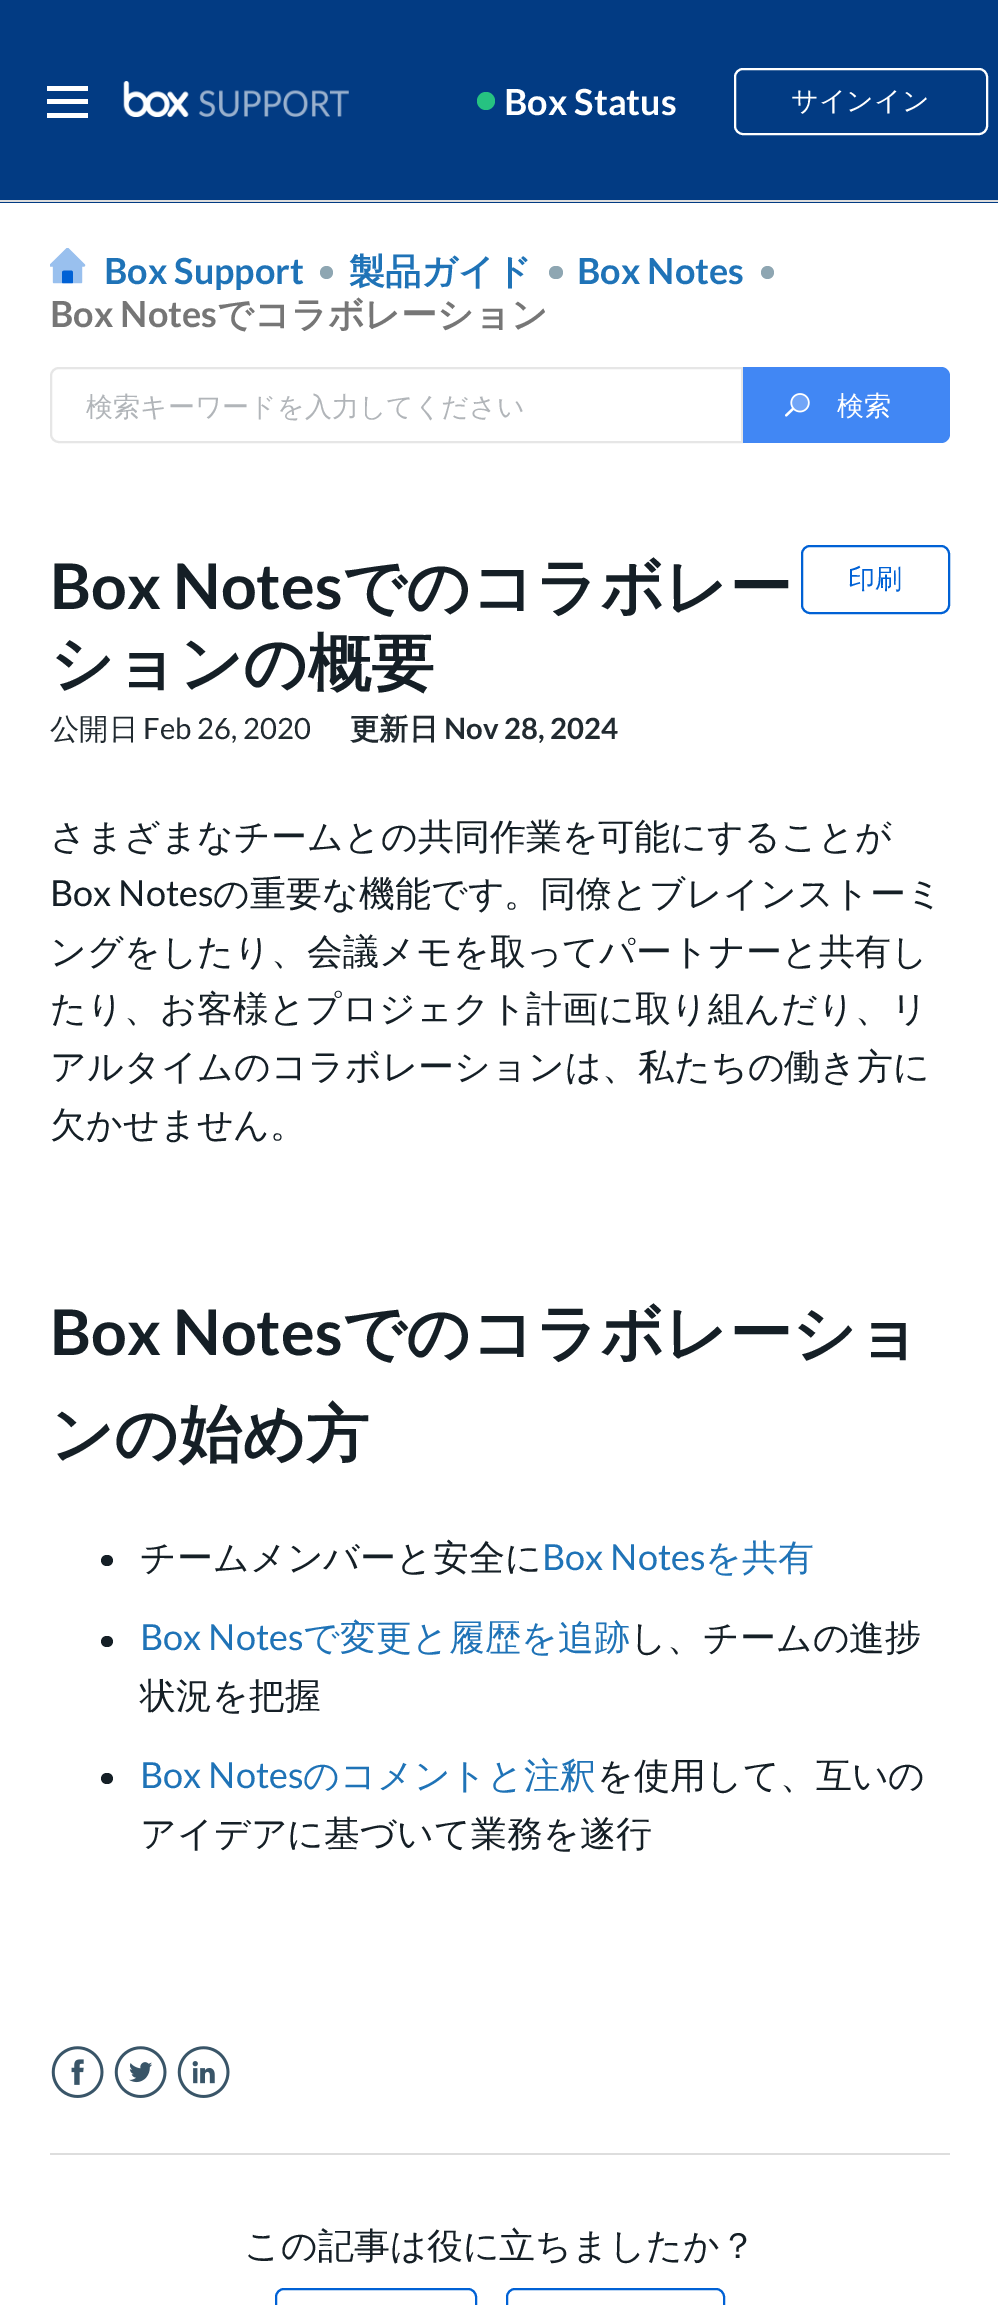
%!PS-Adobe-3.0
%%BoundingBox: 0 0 998 2305
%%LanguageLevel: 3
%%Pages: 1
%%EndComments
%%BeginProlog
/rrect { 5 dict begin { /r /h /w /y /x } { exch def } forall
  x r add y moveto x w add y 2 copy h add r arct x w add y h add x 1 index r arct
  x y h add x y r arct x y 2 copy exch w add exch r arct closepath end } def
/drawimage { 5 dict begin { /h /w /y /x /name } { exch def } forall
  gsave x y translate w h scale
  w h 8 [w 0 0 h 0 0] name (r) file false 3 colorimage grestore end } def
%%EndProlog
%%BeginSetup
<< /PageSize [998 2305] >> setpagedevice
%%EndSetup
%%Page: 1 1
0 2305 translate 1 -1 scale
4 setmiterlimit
1 setgray
0 0 998 2305 rectfill
0.008 0.231 0.514 setrgbcolor
0 0 998 203 rectfill
1 setgray
47 86 41 5 rectfill
47 99 41 5 rectfill
47 113 41 5 rectfill
(images/1.raw) 123 81 226 36 drawimage
0.149 0.761 0.506 setrgbcolor
newpath 486 101 9 0 360 arc closepath fill
1 setgray
2 setlinewidth
735 69 252 65 8 rrect stroke
0.867 setgray
0 200 998 2 rectfill
(images/2.raw) 50 248 36 36 drawimage
0.557 0.651 0.698 setrgbcolor
newpath 326.5 272.5 6.5 0 360 arc closepath fill
549 266 14 13 6.5 rrect fill
newpath 767.5 272.5 6.5 0 360 arc closepath fill
0.902 setgray
newpath 59 368 moveto 742 368 lineto 742 442 lineto 59 442 lineto 54.5 442 51 438.5 51 434 curveto 51 376 lineto 51 371.5 54.5 368 59 368 curveto closepath stroke
0.255 0.529 0.957 setrgbcolor
newpath 743 367 moveto 941 367 lineto 946 367 950 371 950 376 curveto 950 434 lineto 950 439 946 443 941 443 curveto 743 443 lineto closepath fill
(images/3.raw) 785 393 25 24 drawimage
0 0.38 0.835 setrgbcolor
802 546 147 67 8 rrect stroke
0.082 0.122 0.149 setrgbcolor
101 1555 12 11 5.5 rrect fill
101 1636 12 11 5.5 rrect fill
101 1773 12 11 5.5 rrect fill
(images/4.raw) 51 2046 53 52 drawimage
(images/5.raw) 114 2046 53 52 drawimage
(images/6.raw) 177 2046 53 52 drawimage
0.867 setgray
50 2153 900 2 rectfill
0 0.38 0.835 setrgbcolor
276 2289 200 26 8 rrect stroke
507 2289 217 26 8 rrect stroke
/Lato-Bold [36 0 0 -36 0 0] selectfont
1 setgray
504 115 moveto (Box Status) show
/WenQuanYiZenHei-Medium [27 0 0 -27 0 0] selectfont
791 110 moveto (サインイン) show
/Lato-Bold [36 0 0 -36 0 0] selectfont
0.122 0.451 0.718 setrgbcolor
104 284 moveto (Box Support) show
/WenQuanYiZenHei-Bold [36 0 0 -36 0 0] selectfont
349 284 moveto (製品ガイド) show
/Lato-Bold [36 0 0 -36 0 0] selectfont
577 284 moveto (Box Notes) show
0.463 setgray
50 327 moveto (Box Notes) show
/WenQuanYiZenHei-Bold [36 0 0 -36 0 0] selectfont
217 327 moveto (でコラボレーション) show
/WenQuanYiZenHei-Medium [27 0 0 -27 0 0] selectfont
0.694 0.71 0.725 setrgbcolor
86 416 moveto (検索キーワードを入力してください) show
1 setgray
837 415 moveto (検索) show
/Lato-Bold [63 0 0 -63 0 0] selectfont
0.082 0.122 0.149 setrgbcolor
50 609 moveto (Box Notes) show
/WenQuanYiZenHei-Bold [63 0 0 -63 0 0] selectfont
342 609 moveto (でのコラボレー) show
50 685 moveto (ションの概要) show
/WenQuanYiZenHei-Medium [29.25 0 0 -29.25 0 0] selectfont
0.129 0.165 0.188 setrgbcolor
50 739 moveto (公開日) show
/Lato-Regular [29.25 0 0 -29.25 0 0] selectfont
143 739 moveto (Feb 26, 2020) show
/WenQuanYiZenHei-Bold [29.25 0 0 -29.25 0 0] selectfont
350 739 moveto (更新日) show
/Lato-Bold [29.25 0 0 -29.25 0 0] selectfont
444 739 moveto (Nov 28, 2024) show
/WenQuanYiZenHei-Medium [27 0 0 -27 0 0] selectfont
0 0.38 0.835 setrgbcolor
848 588 moveto (印刷) show
/WenQuanYiZenHei-Medium [36 0 0 -36 0 0] selectfont
0.082 0.122 0.149 setrgbcolor
50 849 moveto (さまざまなチームとの共同作業を可能にすることが) show
/Lato-Regular [36 0 0 -36 0 0] selectfont
50 906 moveto (Box Notes) show
/WenQuanYiZenHei-Medium [36 0 0 -36 0 0] selectfont
213 906 moveto (の重要な機能です。同僚とブレインストーミ) show
50 964 moveto (ングをしたり、会議メモを取ってパートナーと共有し) show
50 1021 moveto (たり、お客様とプロジェクト計画に取り組んだり、リ) show
50 1079 moveto (アルタイムのコラボレーションは、私たちの働き方に) show
50 1137 moveto (欠かせません。) show
/Lato-Bold [63 0 0 -63 0 0] selectfont
50 1355 moveto (Box Notes) show
/WenQuanYiZenHei-Bold [63 0 0 -63 0 0] selectfont
342 1355 moveto (でのコラボレーショ) show
50 1456 moveto (ンの始め方) show
/WenQuanYiZenHei-Medium [36 0 0 -36 0 0] selectfont
140 1570 moveto (チームメンバーと安全に) show
/Lato-Regular [36 0 0 -36 0 0] selectfont
0.122 0.451 0.718 setrgbcolor
542 1570 moveto (Box Notes) show
/WenQuanYiZenHei-Medium [36 0 0 -36 0 0] selectfont
705 1570 moveto (を共有) show
/Lato-Regular [36 0 0 -36 0 0] selectfont
140 1650 moveto (Box Notes) show
/WenQuanYiZenHei-Medium [36 0 0 -36 0 0] selectfont
303 1650 moveto (で変更と履歴を追跡) show
0.082 0.122 0.149 setrgbcolor
630 1650 moveto (し、チームの進捗) show
140 1708 moveto (状況を把握) show
/Lato-Regular [36 0 0 -36 0 0] selectfont
0.122 0.451 0.718 setrgbcolor
140 1788 moveto (Box Notes) show
/WenQuanYiZenHei-Medium [36 0 0 -36 0 0] selectfont
303 1788 moveto (のコメントと注釈) show
0.082 0.122 0.149 setrgbcolor
597 1788 moveto (を使用して、互いの) show
140 1846 moveto (アイデアに基づいて業務を遂行) show
244 2258 moveto (この記事は役に立ちましたか？) show
showpage
%%EOF
